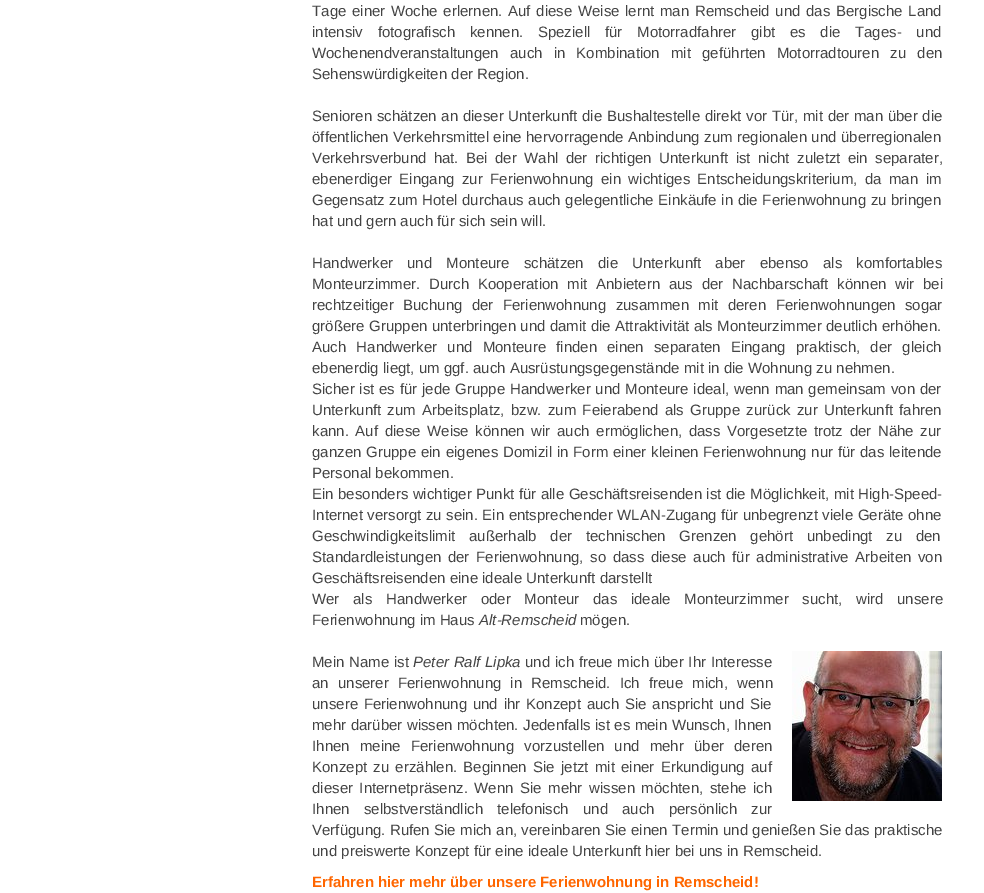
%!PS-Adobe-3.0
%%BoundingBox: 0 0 984 893
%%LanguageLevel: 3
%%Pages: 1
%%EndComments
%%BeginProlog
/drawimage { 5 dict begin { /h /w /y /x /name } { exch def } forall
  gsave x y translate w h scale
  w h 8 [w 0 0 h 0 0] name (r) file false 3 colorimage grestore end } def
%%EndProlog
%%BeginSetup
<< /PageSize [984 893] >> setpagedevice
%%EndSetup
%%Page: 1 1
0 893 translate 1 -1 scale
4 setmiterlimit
1 setgray
0 0 984 893 rectfill
(images/1.raw) 792 651 150 150 drawimage
/LiberationSans-Regular [15 0 0 -15 0 0] selectfont
0.267 setgray
312 16 moveto 1.5 0 32 (Tage einer Woche erlernen. Auf diese Weise lernt man Remscheid und das Bergische Land) widthshow
312 37 moveto 10.5 0 32 (intensiv fotografisch kennen. Speziell für Motorradfahrer gibt es die Tages- und) widthshow
312 58 moveto 7 0 32 (Wochenendveranstaltungen auch in Kombination mit geführten Motorradtouren zu den) widthshow
312 79 moveto (Sehenswürdigkeiten der Region.) show
312 121 moveto 0.5 0 32 (Senioren schätzen an dieser Unterkunft die Bushaltestelle direkt vor Tür, mit der man über die) widthshow
312 142 moveto 0.25 0 32 (öffentlichen Verkehrsmittel eine hervorragende Anbindung zum regionalen und überregionalen) widthshow
312 163 moveto 3.25 0 32 (Verkehrsverbund hat. Bei der Wahl der richtigen Unterkunft ist nicht zuletzt ein separater,) widthshow
312 184 moveto 3.25 0 32 (ebenerdiger Eingang zur Ferienwohnung ein wichtiges Entscheidungskriterium, da man im) widthshow
312 205 moveto 0.5 0 32 (Gegensatz zum Hotel durchaus auch gelegentliche Einkäufe in die Ferienwohnung zu bringen) widthshow
312 226 moveto (hat und gern auch für sich sein will.) show
312 268 moveto 10 0 32 (Handwerker und Monteure schätzen die Unterkunft aber ebenso als komfortables) widthshow
312 289 moveto 4.5 0 32 (Monteurzimmer. Durch Kooperation mit Anbietern aus der Nachbarschaft können wir bei) widthshow
312 310 moveto 5.25 0 32 (rechtzeitiger Buchung der Ferienwohnung zusammen mit deren Ferienwohnungen sogar) widthshow
312 331 moveto 0.25 0 32 (größere Gruppen unterbringen und damit die Attraktivität als Monteurzimmer deutlich erhöhen.) widthshow
312 352 moveto 6 0 32 (Auch Handwerker und Monteure finden einen separaten Eingang praktisch, der gleich) widthshow
312 373 moveto (ebenerdig liegt, um ggf. auch Ausrüstungsgegenstände mit in die Wohnung zu nehmen.) show
312 394 moveto 0.6 0 32 (Sicher ist es für jede Gruppe Handwerker und Monteure ideal, wenn man gemeinsam von der) widthshow
312 415 moveto 2.1 0 32 (Unterkunft zum Arbeitsplatz, bzw. zum Feierabend als Gruppe zurück zur Unterkunft fahren) widthshow
312 436 moveto 2.5 0 32 (kann. Auf diese Weise können wir auch ermöglichen, dass Vorgesetzte trotz der Nähe zur) widthshow
312 457 moveto 0.6 0 32 (ganzen Gruppe ein eigenes Domizil in Form einer kleinen Ferienwohnung nur für das leitende) widthshow
312 478 moveto (Personal bekommen.) show
312 499 moveto 0.25 0 32 (Ein besonders wichtiger Punkt für alle Geschäftsreisenden ist die Möglichkeit, mit High-Speed-) widthshow
312 520 moveto 0.3 0 32 (Internet versorgt zu sein. Ein entsprechender WLAN-Zugang für unbegrenzt viele Geräte ohne) widthshow
312 541 moveto 9.5 0 32 (Geschwindigkeitslimit außerhalb der technischen Grenzen gehört unbedingt zu den) widthshow
312 562 moveto 2.4 0 32 (Standardleistungen der Ferienwohnung, so dass diese auch für administrative Arbeiten von) widthshow
312 583 moveto (Geschäftsreisenden eine ideale Unterkunft darstellt) show
312 604 moveto 9.5 0 32 (Wer als Handwerker oder Monteur das ideale Monteurzimmer sucht, wird unsere) widthshow
312 625 moveto (Ferienwohnung im Haus) show
/LiberationSans-Italic [15 0 0 -15 0 0] selectfont
479 625 moveto (Alt-Remscheid) show
/LiberationSans-Regular [15 0 0 -15 0 0] selectfont
580 625 moveto (mögen.) show
312 667 moveto 0.5 0 32 (Mein Name ist) widthshow
/LiberationSans-Italic [15 0 0 -15 0 0] selectfont
413 667 moveto 0.5 0 32 (Peter Ralf Lipka) widthshow
/LiberationSans-Regular [15 0 0 -15 0 0] selectfont
525 667 moveto 0.5 0 32 (und ich freue mich über Ihr Interesse) widthshow
312 688 moveto 5 0 32 (an unserer Ferienwohnung in Remscheid. Ich freue mich, wenn) widthshow
312 709 moveto 1.6 0 32 (unsere Ferienwohnung und ihr Konzept auch Sie anspricht und Sie) widthshow
312 730 moveto 0.25 0 32 (mehr darüber wissen möchten. Jedenfalls ist es mein Wunsch, Ihnen) widthshow
312 751 moveto 6 0 32 (Ihnen meine Ferienwohnung vorzustellen und mehr über deren) widthshow
312 772 moveto 2.1 0 32 (Konzept zu erzählen. Beginnen Sie jetzt mit einer Erkundigung auf) widthshow
312 793 moveto 2.4 0 32 (dieser Internetpräsenz. Wenn Sie mehr wissen möchten, stehe ich) widthshow
312 814 moveto 10 0 32 (Ihnen selbstverständlich telefonisch und auch persönlich zur) widthshow
312 835 moveto 0.2 0 32 (Verfügung. Rufen Sie mich an, vereinbaren Sie einen Termin und genießen Sie das praktische) widthshow
312 856 moveto (und preiswerte Konzept für eine ideale Unterkunft hier bei uns in Remscheid.) show
/LiberationSans-Bold [15 0 0 -15 0 0] selectfont
1 0.4 0 setrgbcolor
312 887 moveto (Erfahren hier mehr über unsere Ferienwohnung in Remscheid!) show
showpage
%%EOF
